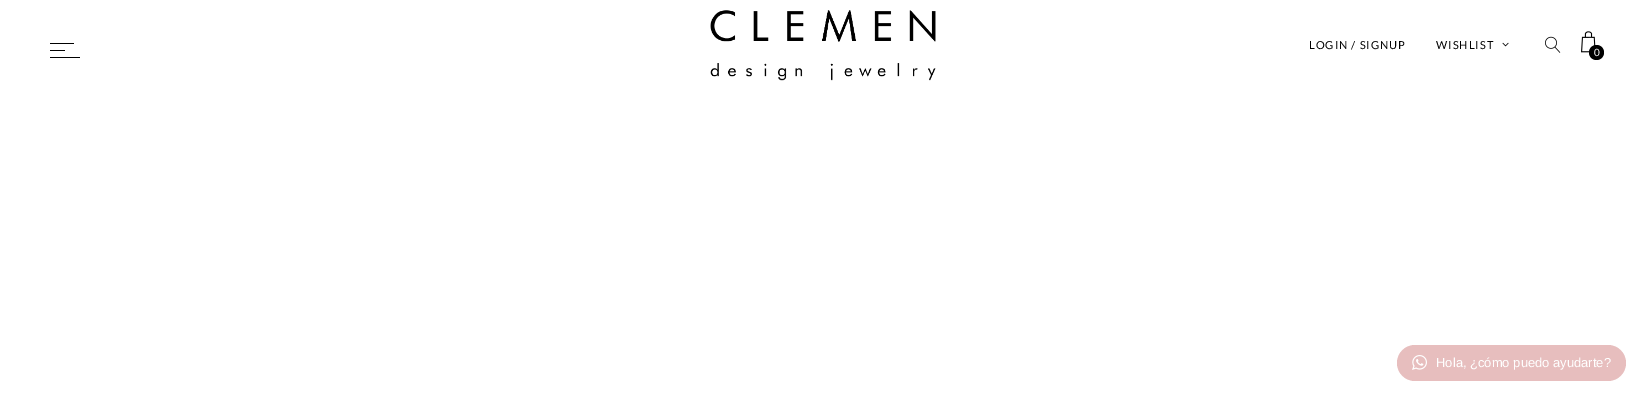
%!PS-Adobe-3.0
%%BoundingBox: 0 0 1646 401
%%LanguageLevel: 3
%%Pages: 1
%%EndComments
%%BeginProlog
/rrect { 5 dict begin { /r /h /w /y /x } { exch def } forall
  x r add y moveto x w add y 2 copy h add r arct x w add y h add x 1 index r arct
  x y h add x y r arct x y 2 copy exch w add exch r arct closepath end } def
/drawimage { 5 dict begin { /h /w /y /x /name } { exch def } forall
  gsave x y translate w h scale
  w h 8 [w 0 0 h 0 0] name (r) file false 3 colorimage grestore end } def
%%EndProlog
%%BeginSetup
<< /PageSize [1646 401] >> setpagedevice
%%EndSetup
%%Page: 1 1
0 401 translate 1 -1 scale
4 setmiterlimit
1 setgray
0 0 1646 401 rectfill
0 setgray
50 43 24 1 rectfill
50 50 15 1 rectfill
50 57 30 1 rectfill
(images/1.raw) 710 10 226 71 drawimage
(images/2.raw) 1502 42 7 5 drawimage
(images/3.raw) 1545 36 16 17 drawimage
(images/4.raw) 1581 31 15 22 drawimage
newpath 1596.5 52.5 7.5 0 360 arc closepath fill
0.906 0.745 0.745 setrgbcolor
1397 345 229 36 18 rrect fill
(images/5.raw) 1412 355 15 15 drawimage
/Lato-Regular [11 0 0 -11 0 0] selectfont
0 setgray
1309 49 moveto 1 0 (LOGIN / SIGNUP) ashow
1436 49 moveto 1 0 (WISHLIST) ashow
/Lato-Regular [10 0 0 -10 0 0] selectfont
1 setgray
1594 56 moveto (0) show
/LiberationSans-Regular [13 0 0 -13 0 0] selectfont
1436 367 moveto (Hola, ¿cómo puedo ayudarte?) show
showpage
%%EOF
